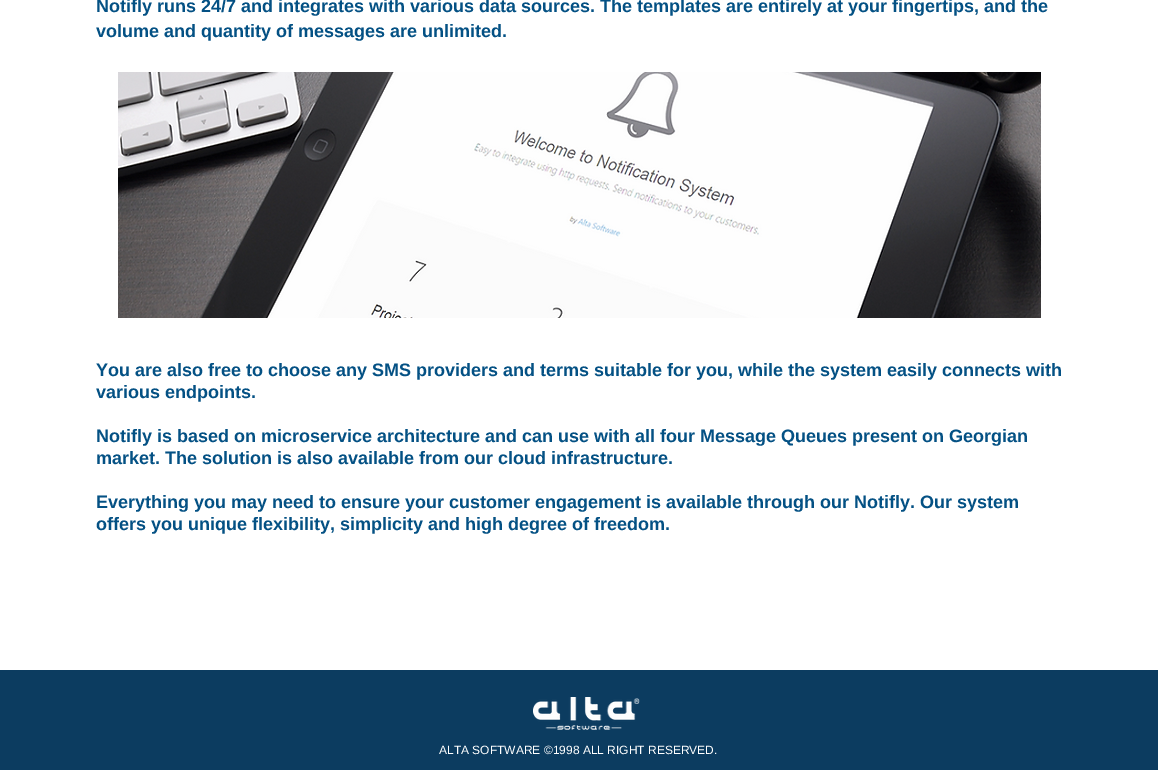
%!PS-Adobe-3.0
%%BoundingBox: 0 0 1158 770
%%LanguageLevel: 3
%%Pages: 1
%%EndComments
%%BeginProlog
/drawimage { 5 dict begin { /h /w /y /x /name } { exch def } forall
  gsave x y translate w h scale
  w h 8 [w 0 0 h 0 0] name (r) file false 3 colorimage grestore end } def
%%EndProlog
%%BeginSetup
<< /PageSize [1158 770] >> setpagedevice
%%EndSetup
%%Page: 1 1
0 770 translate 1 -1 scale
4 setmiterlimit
1 setgray
0 0 1158 770 rectfill
(images/1.raw) 118 72 923 246 drawimage
0.047 0.235 0.376 setrgbcolor
0 670 1158 100 rectfill
(images/2.raw) 533 697 107 33 drawimage
/LiberationSans-Bold [18 0 0 -18 0 0] selectfont
0.016 0.318 0.518 setrgbcolor
96 12 moveto (Notifly runs 24/7 and integrates with various data sources. The templates are entirely at your fingertips, and the) show
96 37 moveto (volume and quantity of messages are unlimited.) show
96 376 moveto (You are also free to choose any SMS providers and terms suitable for you, while the system easily connects with) show
96 398 moveto (various endpoints.) show
96 442 moveto (Notifly is based on microservice architecture and can use with all four Message Queues present on Georgian) show
96 464 moveto (market. The solution is also available from our cloud infrastructure.) show
96 508 moveto (Everything you may need to ensure your customer engagement is available through our Notifly. Our system) show
96 530 moveto (offers you unique flexibility, simplicity and high degree of freedom.) show
/LiberationSans-Regular [12 0 0 -12 0 0] selectfont
1 setgray
439 754 moveto (ALTA SOFTWARE ©1998 ALL RIGHT RESERVED.) show
showpage
%%EOF
